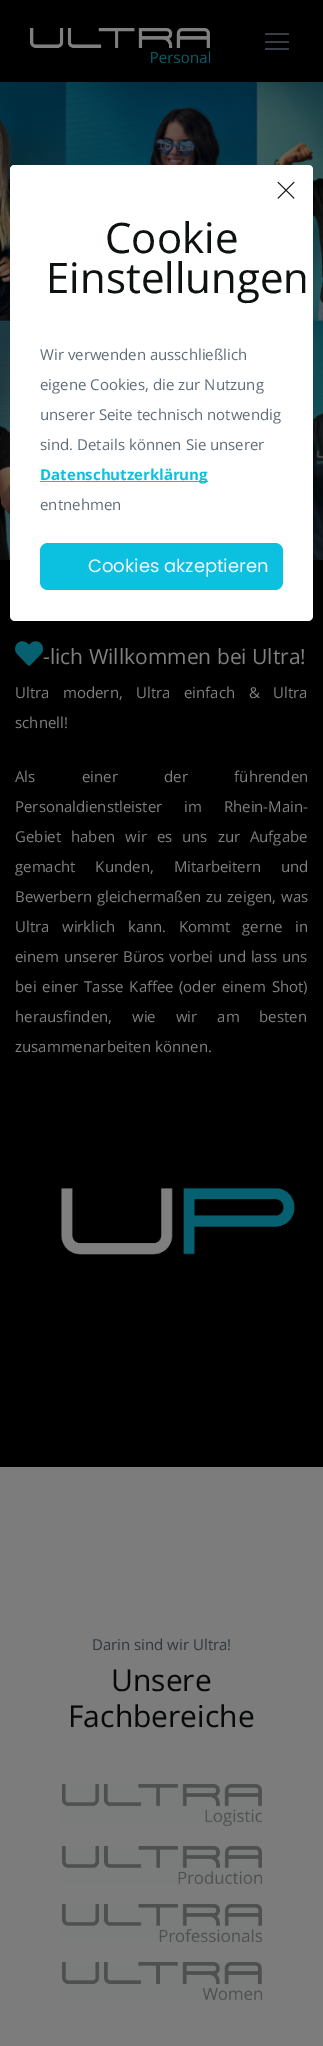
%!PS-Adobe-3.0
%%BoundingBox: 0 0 323 2046
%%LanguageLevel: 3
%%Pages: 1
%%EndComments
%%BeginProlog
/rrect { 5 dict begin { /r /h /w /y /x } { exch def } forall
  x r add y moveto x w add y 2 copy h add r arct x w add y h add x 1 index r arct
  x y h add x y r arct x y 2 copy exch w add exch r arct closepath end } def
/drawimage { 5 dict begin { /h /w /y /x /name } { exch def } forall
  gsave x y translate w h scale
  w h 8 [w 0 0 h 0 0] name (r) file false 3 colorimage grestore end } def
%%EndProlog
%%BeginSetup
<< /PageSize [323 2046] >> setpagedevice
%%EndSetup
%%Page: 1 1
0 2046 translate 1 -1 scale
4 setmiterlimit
0 setgray
0 0 323 2046 rectfill
(images/1.raw) 30 28 180 35 drawimage
0.22 0.239 0.275 setrgbcolor
265 48 24 2 1 rrect fill
265 41 24 2 1 rrect fill
265 33 24 2 1 rrect fill
(images/2.raw) 0 82 323 478 drawimage
1 setgray
10 165 303 456 5 rrect fill
newpath 15 165 moveto 308 165 lineto 311 165 313 167 313 170 curveto 313 202 lineto 10 202 lineto 10 170 lineto 10 167 12 165 15 165 curveto closepath fill
(images/3.raw) 277 181 18 18 drawimage
0.047 0.753 0.875 setrgbcolor
40 481 168 1 rectfill
40 543 243 47 8 rrect fill
(images/4.raw) 15 641 29 25 drawimage
(images/5.raw) 61 1187 234 68 drawimage
0.482 0.486 0.482 setrgbcolor
0 1467 323 579 rectfill
(images/6.raw) 62 1784 200 42 drawimage
(images/7.raw) 62 1846 200 38 drawimage
(images/8.raw) 62 1904 200 38 drawimage
(images/9.raw) 62 1962 200 38 drawimage
/OpenSans-Regular [42 0 0 -42 0 0] selectfont
0.055 0.067 0.067 setrgbcolor
105 253 moveto (Cookie) show
46 293 moveto (Einstellungen) show
/OpenSans-Regular [15 0 0 -15 0 0] selectfont
0.373 0.427 0.475 setrgbcolor
40 360 moveto (Wir verwenden ausschließlich) show
40 390 moveto (eigene Cookies, die zur Nutzung) show
40 420 moveto (unserer Seite technisch notwendig) show
40 450 moveto (sind. Details können Sie unserer) show
/OpenSans-Bold [15 0 0 -15 0 0] selectfont
0.047 0.753 0.875 setrgbcolor
40 480 moveto (Datenschutzerklärung) show
/OpenSans-Regular [15 0 0 -15 0 0] selectfont
0.373 0.427 0.475 setrgbcolor
40 510 moveto (entnehmen) show
/Poppins-Regular [18 0 0 -18 0 0] selectfont
0.961 0.965 0.98 setrgbcolor
88 572 moveto (Cookies akzeptieren) show
/OpenSans-Regular [21 0 0 -21 0 0] selectfont
0.502 setgray
43 664 moveto (-lich Willkommen bei Ultra!) show
/OpenSans-Regular [15 0 0 -15 0 0] selectfont
15 698 moveto 9.5 0 32 (Ultra modern, Ultra einfach & Ultra) widthshow
15 728 moveto (schnell!) show
15 782 moveto 42.5 0 32 (Als einer der führenden) widthshow
15 812 moveto 18 0 32 (Personaldienstleister im Rhein-Main-) widthshow
15 842 moveto 6 0 32 (Gebiet haben wir es uns zur Aufgabe) widthshow
15 872 moveto 16 0 32 (gemacht Kunden, Mitarbeitern und) widthshow
15 902 moveto 1 0 32 (Bewerbern gleichermaßen zu zeigen, was) widthshow
15 932 moveto 8.5 0 32 (Ultra wirklich kann. Kommt gerne in) widthshow
15 962 moveto 1 0 32 (einem unserer Büros vorbei und lass uns) widthshow
15 992 moveto 2 0 32 (bei einer Tasse Kaffee) widthshow
179 992 moveto 2 0 32 (\(oder einem Shot\)) widthshow
15 1022 moveto 16 0 32 (herausfinden, wie wir am besten) widthshow
15 1052 moveto (zusammenarbeiten können.) show
0.188 0.216 0.239 setrgbcolor
92 1650 moveto (Darin sind wir Ultra!) show
/OpenSans-Regular [30 0 0 -30 0 0] selectfont
0.027 0.035 0.035 setrgbcolor
111 1691 moveto (Unsere) show
68 1727 moveto (Fachbereiche) show
showpage
%%EOF
